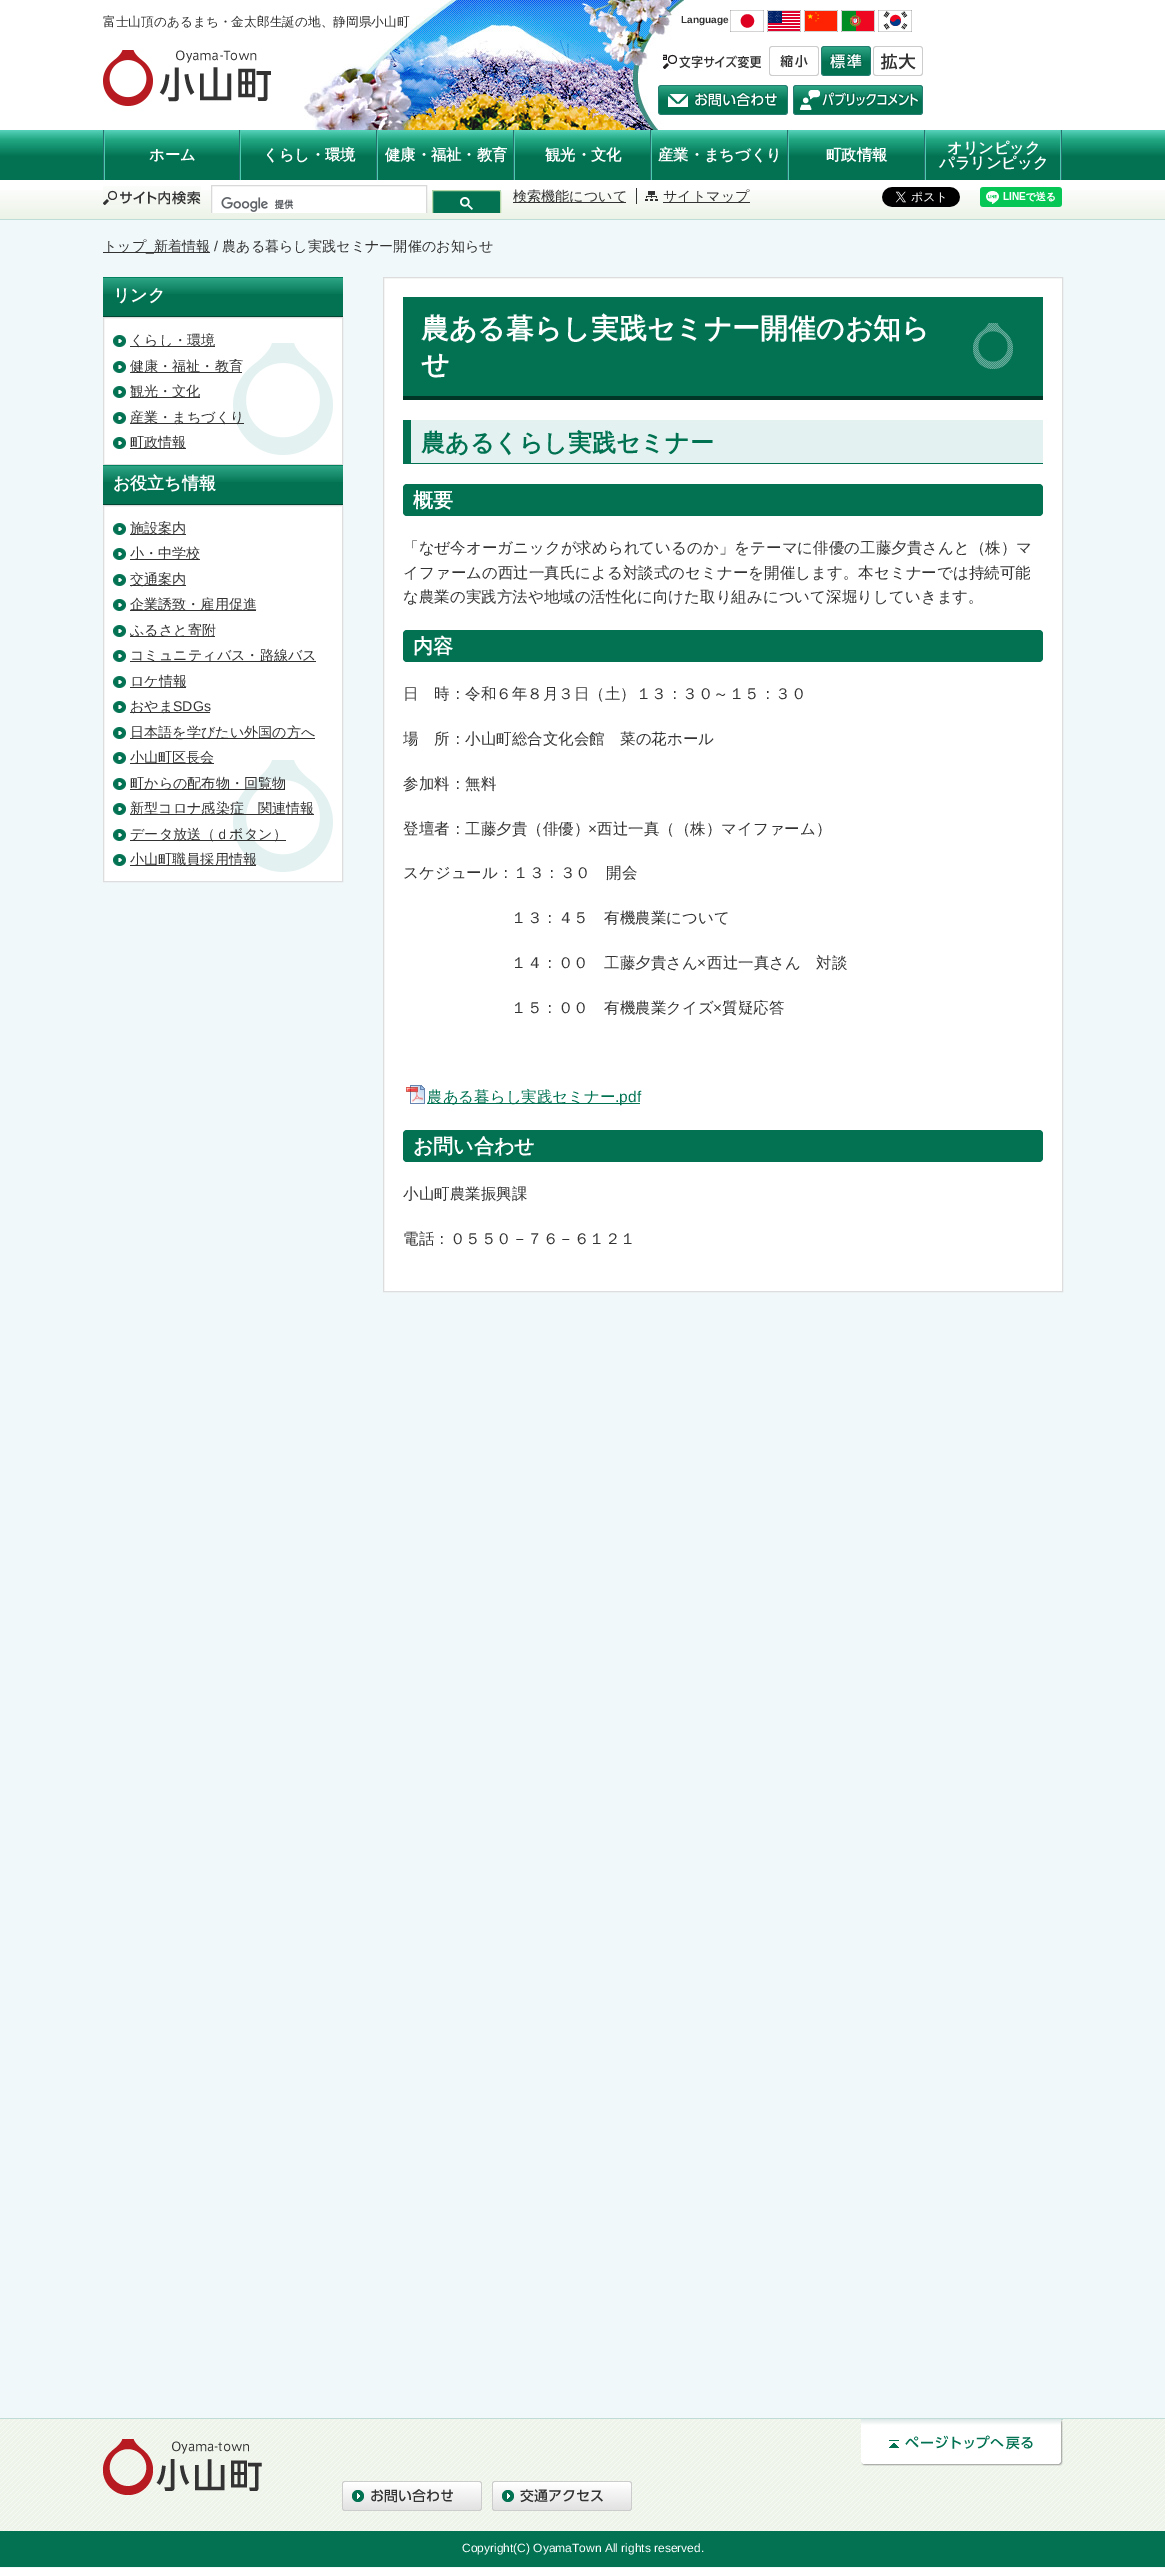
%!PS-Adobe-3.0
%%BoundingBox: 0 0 1165 2568
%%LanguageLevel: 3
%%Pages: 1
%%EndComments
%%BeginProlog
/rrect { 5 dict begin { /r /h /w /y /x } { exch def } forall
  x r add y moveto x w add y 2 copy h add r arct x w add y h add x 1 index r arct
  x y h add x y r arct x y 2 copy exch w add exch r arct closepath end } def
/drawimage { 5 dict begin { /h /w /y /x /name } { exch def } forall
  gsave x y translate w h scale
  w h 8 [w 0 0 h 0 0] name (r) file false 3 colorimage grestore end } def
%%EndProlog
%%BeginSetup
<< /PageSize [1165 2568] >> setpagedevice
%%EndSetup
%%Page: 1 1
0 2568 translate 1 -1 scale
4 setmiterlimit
0.945 0.973 0.98 setrgbcolor
0 0 1165 2568 rectfill
1 setgray
0 0 1165 190 rectfill
(images/1.raw) 304 0 380 130 drawimage
(images/2.raw) 730 10 34 22 drawimage
(images/3.raw) 767 10 34 22 drawimage
(images/4.raw) 804 10 34 22 drawimage
(images/5.raw) 841 10 34 22 drawimage
(images/6.raw) 878 10 34 22 drawimage
(images/7.raw) 103 50 168 56 drawimage
(images/8.raw) 663 54 98 15 drawimage
(images/9.raw) 769 46 50 30 drawimage
(images/10.raw) 821 46 50 30 drawimage
(images/11.raw) 873 46 50 30 drawimage
(images/12.raw) 658 85 130 30 drawimage
(images/13.raw) 793 85 130 30 drawimage
gsave newpath 0 130 moveto 1165 130 lineto 1165 180 lineto 0 180 lineto closepath clip newpath
<< /ShadingType 2 /ColorSpace /DeviceRGB /Coords [583 130 583 180] /Extend [true true] /Function << /FunctionType 3 /Domain [0 1] /Functions [<< /FunctionType 2 /Domain [0 1] /C0 [0.345 0.827 0.733] /C1 [0.133 0.659 0.514] /N 1 >> << /FunctionType 2 /Domain [0 1] /C0 [0.133 0.659 0.514] /C1 [0.008 0.447 0.325] /N 1 >> << /FunctionType 2 /Domain [0 1] /C0 [0.008 0.447 0.325] /C1 [0.008 0.447 0.325] /N 1 >>] /Bounds [0.19 0.53] /Encode [0 1 0 1 0 1] >> >> shfill grestore
0.302 0.792 0.69 setrgbcolor
104 130 1 50 rectfill
0.157 0.435 0.435 setrgbcolor
103 130 1 50 rectfill
0.302 0.792 0.69 setrgbcolor
240 130 1 50 rectfill
0.157 0.435 0.435 setrgbcolor
239 130 1 50 rectfill
0.302 0.792 0.69 setrgbcolor
377 130 1 50 rectfill
0.157 0.435 0.435 setrgbcolor
376 130 1 50 rectfill
0.302 0.792 0.69 setrgbcolor
514 130 1 50 rectfill
0.157 0.435 0.435 setrgbcolor
513 130 1 50 rectfill
0.302 0.792 0.69 setrgbcolor
651 130 1 50 rectfill
0.157 0.435 0.435 setrgbcolor
650 130 1 50 rectfill
0.302 0.792 0.69 setrgbcolor
788 130 1 50 rectfill
0.157 0.435 0.435 setrgbcolor
787 130 1 50 rectfill
0.302 0.792 0.69 setrgbcolor
1060 130 1 50 rectfill
925 130 1 50 rectfill
0.157 0.435 0.435 setrgbcolor
1061 130 1 50 rectfill
924 130 1 50 rectfill
(images/14.raw) 0 190 1165 29 drawimage
0.753 0.863 0.839 setrgbcolor
0 219 1165 1 rectfill
(images/15.raw) 103 186 98 19 drawimage
1 setgray
212 190 214 23 rectfill
gsave
103 185 400 28 rectclip
0.851 setgray
211.5 185.5 215 36 rectstroke
grestore
(images/16.raw) 221 197 73 15 drawimage
0.012 0.447 0.322 setrgbcolor
newpath 434 190 moveto 499 190 lineto 500 190 501 191 501 192 curveto 501 213 lineto 432 213 lineto 432 192 lineto 432 191 433 190 434 190 curveto closepath fill
gsave
103 185 400 28 rectclip
0.714 0.843 0.659 setrgbcolor
432.5 190.5 68 26 1.5 rrect stroke
grestore
(images/17.raw) 460 197 13 13 drawimage
0.2 setgray
513 202 113 1 rectfill
(images/18.raw) 645 191 13 10 drawimage
636 188 1 16 rectfill
663 202 87 1 rectfill
(images/19.raw) 882 187 78 20 drawimage
(images/20.raw) 980 187 82 20 drawimage
103 252 107 1 rectfill
0.008 0.447 0.325 setrgbcolor
103 294 240 22 rectfill
(images/21.raw) 103 278 240 16 drawimage
0.008 0.51 0.373 setrgbcolor
103 277 240 1 rectfill
0.004 0.271 0.196 setrgbcolor
103 316 240 1 rectfill
1 setgray
104 318 238 146 rectfill
(images/22.raw) 233 343 100 112 drawimage
0.867 setgray
103.5 317.5 239 147 rectstroke
(images/23.raw) 113 335 13 12 drawimage
0.2 setgray
130 346 85 1 rectfill
(images/23.raw) 113 361 13 12 drawimage
130 372 112 1 rectfill
(images/23.raw) 113 386 13 12 drawimage
130 397 70 1 rectfill
(images/23.raw) 113 412 13 12 drawimage
130 423 114 1 rectfill
(images/23.raw) 113 437 13 12 drawimage
130 448 56 1 rectfill
0.008 0.447 0.325 setrgbcolor
103 482 240 22 rectfill
(images/21.raw) 103 466 240 16 drawimage
0.008 0.51 0.373 setrgbcolor
103 465 240 1 rectfill
0.004 0.271 0.196 setrgbcolor
103 504 240 1 rectfill
1 setgray
104 506 238 375 rectfill
(images/22.raw) 233 760 100 112 drawimage
0.867 setgray
103.5 505.5 239 376 rectstroke
(images/23.raw) 113 523 13 12 drawimage
0.2 setgray
130 534 56 1 rectfill
(images/23.raw) 113 548 13 12 drawimage
130 559 70 1 rectfill
(images/23.raw) 113 574 13 12 drawimage
130 585 56 1 rectfill
(images/23.raw) 113 599 13 12 drawimage
130 610 126 1 rectfill
(images/23.raw) 113 625 13 12 drawimage
130 636 85 1 rectfill
(images/23.raw) 113 650 13 12 drawimage
130 661 186 1 rectfill
(images/23.raw) 113 676 13 12 drawimage
130 687 56 1 rectfill
(images/23.raw) 113 701 13 12 drawimage
130 712 80 1 rectfill
(images/23.raw) 113 727 13 12 drawimage
130 738 185 1 rectfill
(images/23.raw) 113 752 13 12 drawimage
130 763 84 1 rectfill
(images/23.raw) 113 778 13 12 drawimage
130 789 155 1 rectfill
(images/23.raw) 113 803 13 12 drawimage
130 814 184 1 rectfill
(images/23.raw) 113 829 13 12 drawimage
130 840 156 1 rectfill
(images/23.raw) 113 854 13 12 drawimage
130 865 126 1 rectfill
1 setgray
newpath 383.5 277.5 moveto 1062.5 277.5 lineto 1062.5 1291.5 lineto 383.5 1291.5 lineto closepath gsave fill grestore
0.867 setgray
stroke
0.008 0.447 0.325 setrgbcolor
403 297 640 99 rectfill
(images/24.raw) 973 323 40 46 drawimage
0.004 0.212 0.153 setrgbcolor
403 396 640 4 rectfill
0.894 0.945 0.945 setrgbcolor
411 420 632 43 rectfill
0.008 0.447 0.325 setrgbcolor
403 463 640 1 rectfill
403 420 8 44 rectfill
403 484 640 32 4 rrect fill
403 630 640 32 4 rrect fill
(images/25.raw) 406 1085 19 19 drawimage
0 0.447 0.322 setrgbcolor
427 1103 213 1 rectfill
0.008 0.447 0.325 setrgbcolor
403 1130 640 32 4 rrect fill
(images/26.raw) 0 2419 1165 112 drawimage
0.753 0.863 0.839 setrgbcolor
0 2418 1165 1 rectfill
(images/27.raw) 103 2439 159 56 drawimage
(images/28.raw) 342 2481 140 30 drawimage
(images/29.raw) 492 2481 140 30 drawimage
(images/30.raw) 861 2419 202 47 drawimage
0.008 0.447 0.325 setrgbcolor
0 2531 1165 36 rectfill
/WenQuanYiZenHei-Medium [12.7 0 0 -12.7 0 0] selectfont
0.2 setgray
103 26 moveto (富士山頂のあるまち・金太郎生誕の地、静岡県小山町) show
/LiberationSans-Bold [10 0 0 -10 0 0] selectfont
681 23 moveto (Language) show
/WenQuanYiZenHei-Bold [15.25 0 0 -15.25 0 0] selectfont
1 setgray
149 160 moveto (ホーム) show
263 160 moveto (くらし・環境) show
385 160 moveto (健康・福祉・教育) show
545 160 moveto (観光・文化) show
658 160 moveto (産業・まちづくり) show
826 160 moveto (町政情報) show
947 153 moveto (オリンピック) show
939 168 moveto (パラリンピック) show
/WenQuanYiZenHei-Medium [14.1 0 0 -14.1 0 0] selectfont
0.2 setgray
513 201 moveto (検索機能について) show
663 201 moveto (サイトマップ) show
103 251 moveto (トップ) show
/LiberationSans-Regular [14.1 0 0 -14.1 0 0] selectfont
214 251 moveto (/) show
/WenQuanYiZenHei-Medium [14.1 0 0 -14.1 0 0] selectfont
222 251 moveto (農ある暮らし実践セミナー開催のお知らせ) show
/LiberationSans-Regular [14.1 0 0 -14.1 0 0] selectfont
146 251 moveto (_) show
/WenQuanYiZenHei-Medium [14.1 0 0 -14.1 0 0] selectfont
154 251 moveto (新着情報) show
/WenQuanYiZenHei-Bold [17 0 0 -17 0 0] selectfont
1 setgray
113 301 moveto (リンク) show
/WenQuanYiZenHei-Medium [14.1 0 0 -14.1 0 0] selectfont
0.2 setgray
130 345 moveto (くらし・環境) show
130 371 moveto (健康・福祉・教育) show
130 396 moveto (観光・文化) show
130 422 moveto (産業・まちづくり) show
130 447 moveto (町政情報) show
/WenQuanYiZenHei-Bold [17 0 0 -17 0 0] selectfont
1 setgray
113 489 moveto (お役立ち情報) show
/WenQuanYiZenHei-Medium [14.1 0 0 -14.1 0 0] selectfont
0.2 setgray
130 533 moveto (施設案内) show
130 558 moveto (小・中学校) show
130 584 moveto (交通案内) show
130 609 moveto (企業誘致・雇用促進) show
130 635 moveto (ふるさと寄附) show
130 660 moveto (コミュニティバス・路線バス) show
130 686 moveto (ロケ情報) show
130 711 moveto (おやま) show
/LiberationSans-Regular [14.1 0 0 -14.1 0 0] selectfont
173 711 moveto (SDGs) show
/WenQuanYiZenHei-Medium [14.1 0 0 -14.1 0 0] selectfont
130 737 moveto (日本語を学びたい外国の方へ) show
130 762 moveto (小山町区長会) show
130 788 moveto (町からの配布物・回覧物) show
130 813 moveto (新型コロナ感染症　関連情報) show
130 839 moveto (データ放送（ｄボタン）) show
130 864 moveto (小山町職員採用情報) show
/WenQuanYiZenHei-Bold [27.9 0 0 -27.9 0 0] selectfont
1 setgray
421 338 moveto (農ある暮らし実践セミナー開催のお知ら) show
421 374 moveto (せ) show
/WenQuanYiZenHei-Bold [24 0 0 -24 0 0] selectfont
0 0.447 0.322 setrgbcolor
421 451 moveto (農あるくらし実践セミナー) show
/WenQuanYiZenHei-Bold [20 0 0 -20 0 0] selectfont
1 setgray
413 507 moveto (概要) show
/WenQuanYiZenHei-Medium [15.5 0 0 -15.5 0 0] selectfont
0.2 setgray
403 553 moveto (「なぜ今オーガニックが求められているのか」をテーマに俳優の工藤夕貴さんと（株）マ) show
403 578 moveto (イファームの西辻一真氏による対談式のセミナーを開催します。本セミナーでは持続可能) show
403 602 moveto (な農業の実践方法や地域の活性化に向けた取り組みについて深堀りしていきます。) show
/WenQuanYiZenHei-Bold [20 0 0 -20 0 0] selectfont
1 setgray
413 653 moveto (内容) show
/WenQuanYiZenHei-Medium [15.5 0 0 -15.5 0 0] selectfont
0.2 setgray
403 699 moveto (日　時：令和６年８月３日（土）１３：３０～１５：３０) show
403 744 moveto (場　所：小山町総合文化会館　菜の花ホール) show
403 789 moveto (参加料：無料) show
403 834 moveto (登壇者：工藤夕貴（俳優）) show
/LiberationSans-Regular [15.5 0 0 -15.5 0 0] selectfont
588 834 moveto (×) show
/WenQuanYiZenHei-Medium [15.5 0 0 -15.5 0 0] selectfont
597 834 moveto (西辻一真（（株）マイファーム）) show
403 878 moveto (スケジュール：１３：３０　開会) show
511 923 moveto (１３：４５　有機農業について) show
511 968 moveto (１４：００　工藤夕貴さん) show
/LiberationSans-Regular [15.5 0 0 -15.5 0 0] selectfont
697 968 moveto (×) show
/WenQuanYiZenHei-Medium [15.5 0 0 -15.5 0 0] selectfont
707 968 moveto (西辻一真さん　対談) show
511 1013 moveto (１５：００　有機農業クイズ) show
/LiberationSans-Regular [15.5 0 0 -15.5 0 0] selectfont
713 1013 moveto (×) show
/WenQuanYiZenHei-Medium [15.5 0 0 -15.5 0 0] selectfont
722 1013 moveto (質疑応答) show
0 0.447 0.322 setrgbcolor
427 1102 moveto (農ある暮らし実践セミナー) show
/LiberationSans-Regular [15.5 0 0 -15.5 0 0] selectfont
615 1102 moveto (.pdf) show
/WenQuanYiZenHei-Bold [20 0 0 -20 0 0] selectfont
1 setgray
413 1153 moveto (お問い合わせ) show
/WenQuanYiZenHei-Medium [15.5 0 0 -15.5 0 0] selectfont
0.2 setgray
403 1199 moveto (小山町農業振興課) show
403 1244 moveto (電話：０５５０－７６－６１２１) show
/LiberationSans-Regular [12 0 0 -12 0 0] selectfont
1 setgray
462 2552 moveto (Copyright\(C\) OyamaTown All rights reserved.) show
showpage
%%EOF
